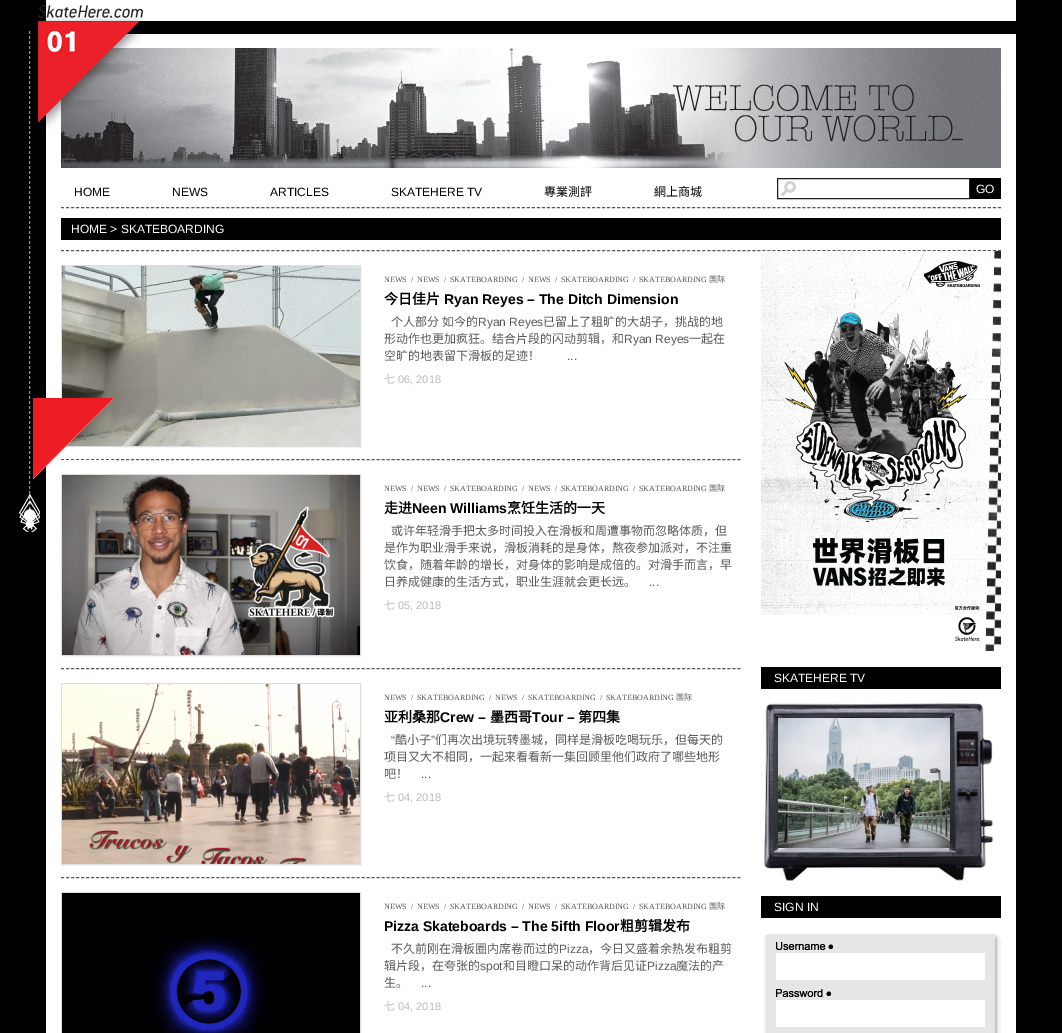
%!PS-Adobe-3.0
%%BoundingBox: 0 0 1062 1033
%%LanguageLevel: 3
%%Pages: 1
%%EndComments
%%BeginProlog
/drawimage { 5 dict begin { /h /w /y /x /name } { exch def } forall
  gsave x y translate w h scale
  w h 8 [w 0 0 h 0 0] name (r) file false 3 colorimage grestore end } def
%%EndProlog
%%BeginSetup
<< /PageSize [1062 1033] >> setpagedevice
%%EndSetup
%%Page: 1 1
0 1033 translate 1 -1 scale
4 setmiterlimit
0 setgray
0 0 1062 1033 rectfill
(images/1.raw) 19 494 21 38 drawimage
1 setgray
46 0 970 1033 rectfill
0 setgray
46 21 970 13 rectfill
(images/4.raw) 61 48 940 120 drawimage
(images/2.raw) 38 5 106 124 drawimage
0.569 0.561 0.561 setrgbcolor
[3 2] 0 setdash
newpath 29.5 31 moveto 29.5 494 lineto stroke
0.353 0.341 0.345 setrgbcolor
[3 2.01] 0 setdash
newpath 61 459.5 moveto 741 459.5 lineto stroke
0.867 setgray
[] 0 setdash
61.5 265.5 299 181 rectstroke
(images/6.raw) 62 266 298 180 drawimage
61.5 474.5 299 181 rectstroke
(images/7.raw) 62 475 298 180 drawimage
(images/3.raw) 33 398 81 81 drawimage
0.353 0.341 0.345 setrgbcolor
[3 2.01] 0 setdash
newpath 61 207.5 moveto 1001 207.5 lineto stroke
(images/5.raw) 781 181 15 15 drawimage
0.137 0.122 0.125 setrgbcolor
[] 0 setdash
777.5 178.5 192 20 rectstroke
0 setgray
970 178 31 21 rectfill
0.353 0.341 0.345 setrgbcolor
[3 2.01] 0 setdash
newpath 61 250.5 moveto 1001 250.5 lineto stroke
0 setgray
61 218 940 22 rectfill
0.353 0.341 0.345 setrgbcolor
newpath 61 668.5 moveto 741 668.5 lineto stroke
newpath 61 877.5 moveto 741 877.5 lineto stroke
0.867 setgray
[] 0 setdash
61.5 683.5 299 181 rectstroke
(images/8.raw) 62 684 298 180 drawimage
61.5 892.5 299 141 rectstroke
(images/9.raw) 62 893 298 140 drawimage
(images/10.raw) 761 251 240 400 drawimage
0 setgray
761 667 240 22 rectfill
(images/11.raw) 763 702 231 182 drawimage
(images/12.raw) 778 718 172 130 drawimage
761 896 240 22 rectfill
(images/13.raw) 764 933 237 100 drawimage
(images/14.raw) 776 942 57 8 drawimage
1 setgray
776 953 209 27 rectfill
(images/15.raw) 776 989 55 8 drawimage
776 1000 209 27 rectfill
/LiberationSans-Regular [12 0 0 -12 0 0] selectfont
0 setgray
74 196 moveto (HOME) show
172 196 moveto (NEWS) show
270 196 moveto (ARTICLES) show
391 196 moveto (SKATEHERE TV) show
/NotoSansCJKSC-Regular [12 0 0 -12 0 0] selectfont
544 196 moveto (專業測評) show
654 196 moveto (網上商城) show
/LiberationSans-Regular [12 0 0 -12 0 0] selectfont
1 setgray
976 193 moveto (GO) show
71 233 moveto (HOME > SKATEBOARDING) show
/LiberationSerif-Regular [8 0 0 -8 0 0] selectfont
0.349 setgray
384 282 moveto (NEWS) show
411 282 moveto (/) show
417 282 moveto (NEWS) show
444 282 moveto (/) show
450 282 moveto (SKATEBOARDING) show
522 282 moveto (/) show
528 282 moveto (NEWS) show
555 282 moveto (/) show
561 282 moveto (SKATEBOARDING) show
633 282 moveto (/) show
639 282 moveto (SKATEBOARDING) show
/NotoSansCJKSC-Regular [8 0 0 -8 0 0] selectfont
709 282 moveto (国际) show
/NotoSansCJKSC-Bold [14 0 0 -14 0 0] selectfont
0 setgray
384 304 moveto (今日佳片) show
/LiberationSans-Bold [14 0 0 -14 0 0] selectfont
444 304 moveto (Ryan Reyes – The Ditch Dimension) show
/NotoSansCJKSC-Regular [12 0 0 -12 0 0] selectfont
0.349 setgray
391 326 moveto (个人部分) show
442 326 moveto (如今的) show
/LiberationSans-Regular [12 0 0 -12 0 0] selectfont
478 326 moveto (Ryan Reyes) show
/NotoSansCJKSC-Regular [12 0 0 -12 0 0] selectfont
543 326 moveto (已留上了粗旷的大胡子，挑战的地) show
384 343 moveto (形动作也更加疯狂。结合片段的闪动剪辑，和) show
/LiberationSans-Regular [12 0 0 -12 0 0] selectfont
624 343 moveto (Ryan Reyes) show
/NotoSansCJKSC-Regular [12 0 0 -12 0 0] selectfont
689 343 moveto (一起在) show
384 360 moveto (空旷的地表留下滑板的足迹！) show
/LiberationSans-Regular [12 0 0 -12 0 0] selectfont
567 360 moveto (...) show
/NotoSansCJKSC-Regular [11 0 0 -11 0 0] selectfont
0.733 setgray
384 383 moveto (七) show
/LiberationSans-Regular [11 0 0 -11 0 0] selectfont
398 383 moveto (06, 2018) show
/LiberationSerif-Regular [8 0 0 -8 0 0] selectfont
0.349 setgray
384 491 moveto (NEWS) show
411 491 moveto (/) show
417 491 moveto (NEWS) show
444 491 moveto (/) show
450 491 moveto (SKATEBOARDING) show
522 491 moveto (/) show
528 491 moveto (NEWS) show
555 491 moveto (/) show
561 491 moveto (SKATEBOARDING) show
633 491 moveto (/) show
639 491 moveto (SKATEBOARDING) show
/NotoSansCJKSC-Regular [8 0 0 -8 0 0] selectfont
709 491 moveto (国际) show
/NotoSansCJKSC-Bold [14 0 0 -14 0 0] selectfont
0 setgray
384 513 moveto (走进) show
/LiberationSans-Bold [14 0 0 -14 0 0] selectfont
412 513 moveto (Neen Williams) show
/NotoSansCJKSC-Bold [14 0 0 -14 0 0] selectfont
507 513 moveto (烹饪生活的一天) show
/NotoSansCJKSC-Regular [12 0 0 -12 0 0] selectfont
0.349 setgray
391 535 moveto (或许年轻滑手把太多时间投入在滑板和周遭事物而忽略体质，但) show
384 552 moveto (是作为职业滑手来说，滑板消耗的是身体，熬夜参加派对，不注重) show
384 569 moveto (饮食，随着年龄的增长，对身体的影响是成倍的。对滑手而言，早) show
384 586 moveto (日养成健康的生活方式，职业生涯就会更长远。) show
/LiberationSans-Regular [12 0 0 -12 0 0] selectfont
649 586 moveto (...) show
/NotoSansCJKSC-Regular [11 0 0 -11 0 0] selectfont
0.733 setgray
384 609 moveto (七) show
/LiberationSans-Regular [11 0 0 -11 0 0] selectfont
398 609 moveto (05, 2018) show
/LiberationSerif-Regular [8 0 0 -8 0 0] selectfont
0.349 setgray
384 700 moveto (NEWS) show
411 700 moveto (/) show
417 700 moveto (SKATEBOARDING) show
489 700 moveto (/) show
495 700 moveto (NEWS) show
522 700 moveto (/) show
528 700 moveto (SKATEBOARDING) show
600 700 moveto (/) show
606 700 moveto (SKATEBOARDING) show
/NotoSansCJKSC-Regular [8 0 0 -8 0 0] selectfont
676 700 moveto (国际) show
/NotoSansCJKSC-Bold [14 0 0 -14 0 0] selectfont
0 setgray
384 722 moveto (亚利桑那) show
/LiberationSans-Bold [14 0 0 -14 0 0] selectfont
440 722 moveto (Crew –) show
/NotoSansCJKSC-Bold [14 0 0 -14 0 0] selectfont
490 722 moveto (墨西哥) show
/LiberationSans-Bold [14 0 0 -14 0 0] selectfont
532 722 moveto (Tour –) show
/NotoSansCJKSC-Bold [14 0 0 -14 0 0] selectfont
578 722 moveto (第四集) show
/LiberationSans-Regular [12 0 0 -12 0 0] selectfont
0.349 setgray
391 744 moveto (“) show
/NotoSansCJKSC-Regular [12 0 0 -12 0 0] selectfont
395 744 moveto (酷小子) show
/LiberationSans-Regular [12 0 0 -12 0 0] selectfont
431 744 moveto (”) show
/NotoSansCJKSC-Regular [12 0 0 -12 0 0] selectfont
435 744 moveto (们再次出境玩转墨城，同样是滑板吃喝玩乐，但每天的) show
384 761 moveto (项目又大不相同，一起来看看新一集回顾里他们政府了哪些地形) show
384 778 moveto (吧！) show
/LiberationSans-Regular [12 0 0 -12 0 0] selectfont
421 778 moveto (...) show
/NotoSansCJKSC-Regular [11 0 0 -11 0 0] selectfont
0.733 setgray
384 801 moveto (七) show
/LiberationSans-Regular [11 0 0 -11 0 0] selectfont
398 801 moveto (04, 2018) show
/LiberationSerif-Regular [8 0 0 -8 0 0] selectfont
0.349 setgray
384 909 moveto (NEWS) show
411 909 moveto (/) show
417 909 moveto (NEWS) show
444 909 moveto (/) show
450 909 moveto (SKATEBOARDING) show
522 909 moveto (/) show
528 909 moveto (NEWS) show
555 909 moveto (/) show
561 909 moveto (SKATEBOARDING) show
633 909 moveto (/) show
639 909 moveto (SKATEBOARDING) show
/NotoSansCJKSC-Regular [8 0 0 -8 0 0] selectfont
709 909 moveto (国际) show
/LiberationSans-Bold [14 0 0 -14 0 0] selectfont
0 setgray
384 931 moveto (Pizza Skateboards – The 5ifth Floor) show
/NotoSansCJKSC-Bold [14 0 0 -14 0 0] selectfont
620 931 moveto (粗剪辑发布) show
/NotoSansCJKSC-Regular [12 0 0 -12 0 0] selectfont
0.349 setgray
391 953 moveto (不久前刚在滑板圈内席卷而过的) show
/LiberationSans-Regular [12 0 0 -12 0 0] selectfont
559 953 moveto (Pizza) show
/NotoSansCJKSC-Regular [12 0 0 -12 0 0] selectfont
588 953 moveto (，今日又盛着余热发布粗剪) show
384 970 moveto (辑片段，在夸张的) show
/LiberationSans-Regular [12 0 0 -12 0 0] selectfont
480 970 moveto (spot) show
/NotoSansCJKSC-Regular [12 0 0 -12 0 0] selectfont
503 970 moveto (和目瞪口呆的动作背后见证) show
/LiberationSans-Regular [12 0 0 -12 0 0] selectfont
647 970 moveto (Pizza) show
/NotoSansCJKSC-Regular [12 0 0 -12 0 0] selectfont
676 970 moveto (魔法的产) show
384 987 moveto (生。) show
/LiberationSans-Regular [12 0 0 -12 0 0] selectfont
421 987 moveto (...) show
/NotoSansCJKSC-Regular [11 0 0 -11 0 0] selectfont
0.733 setgray
384 1010 moveto (七) show
/LiberationSans-Regular [11 0 0 -11 0 0] selectfont
398 1010 moveto (04, 2018) show
/LiberationSans-Regular [12 0 0 -12 0 0] selectfont
1 setgray
774 682 moveto (SKATEHERE TV) show
774 911 moveto (SIGN IN) show
showpage
%%EOF
